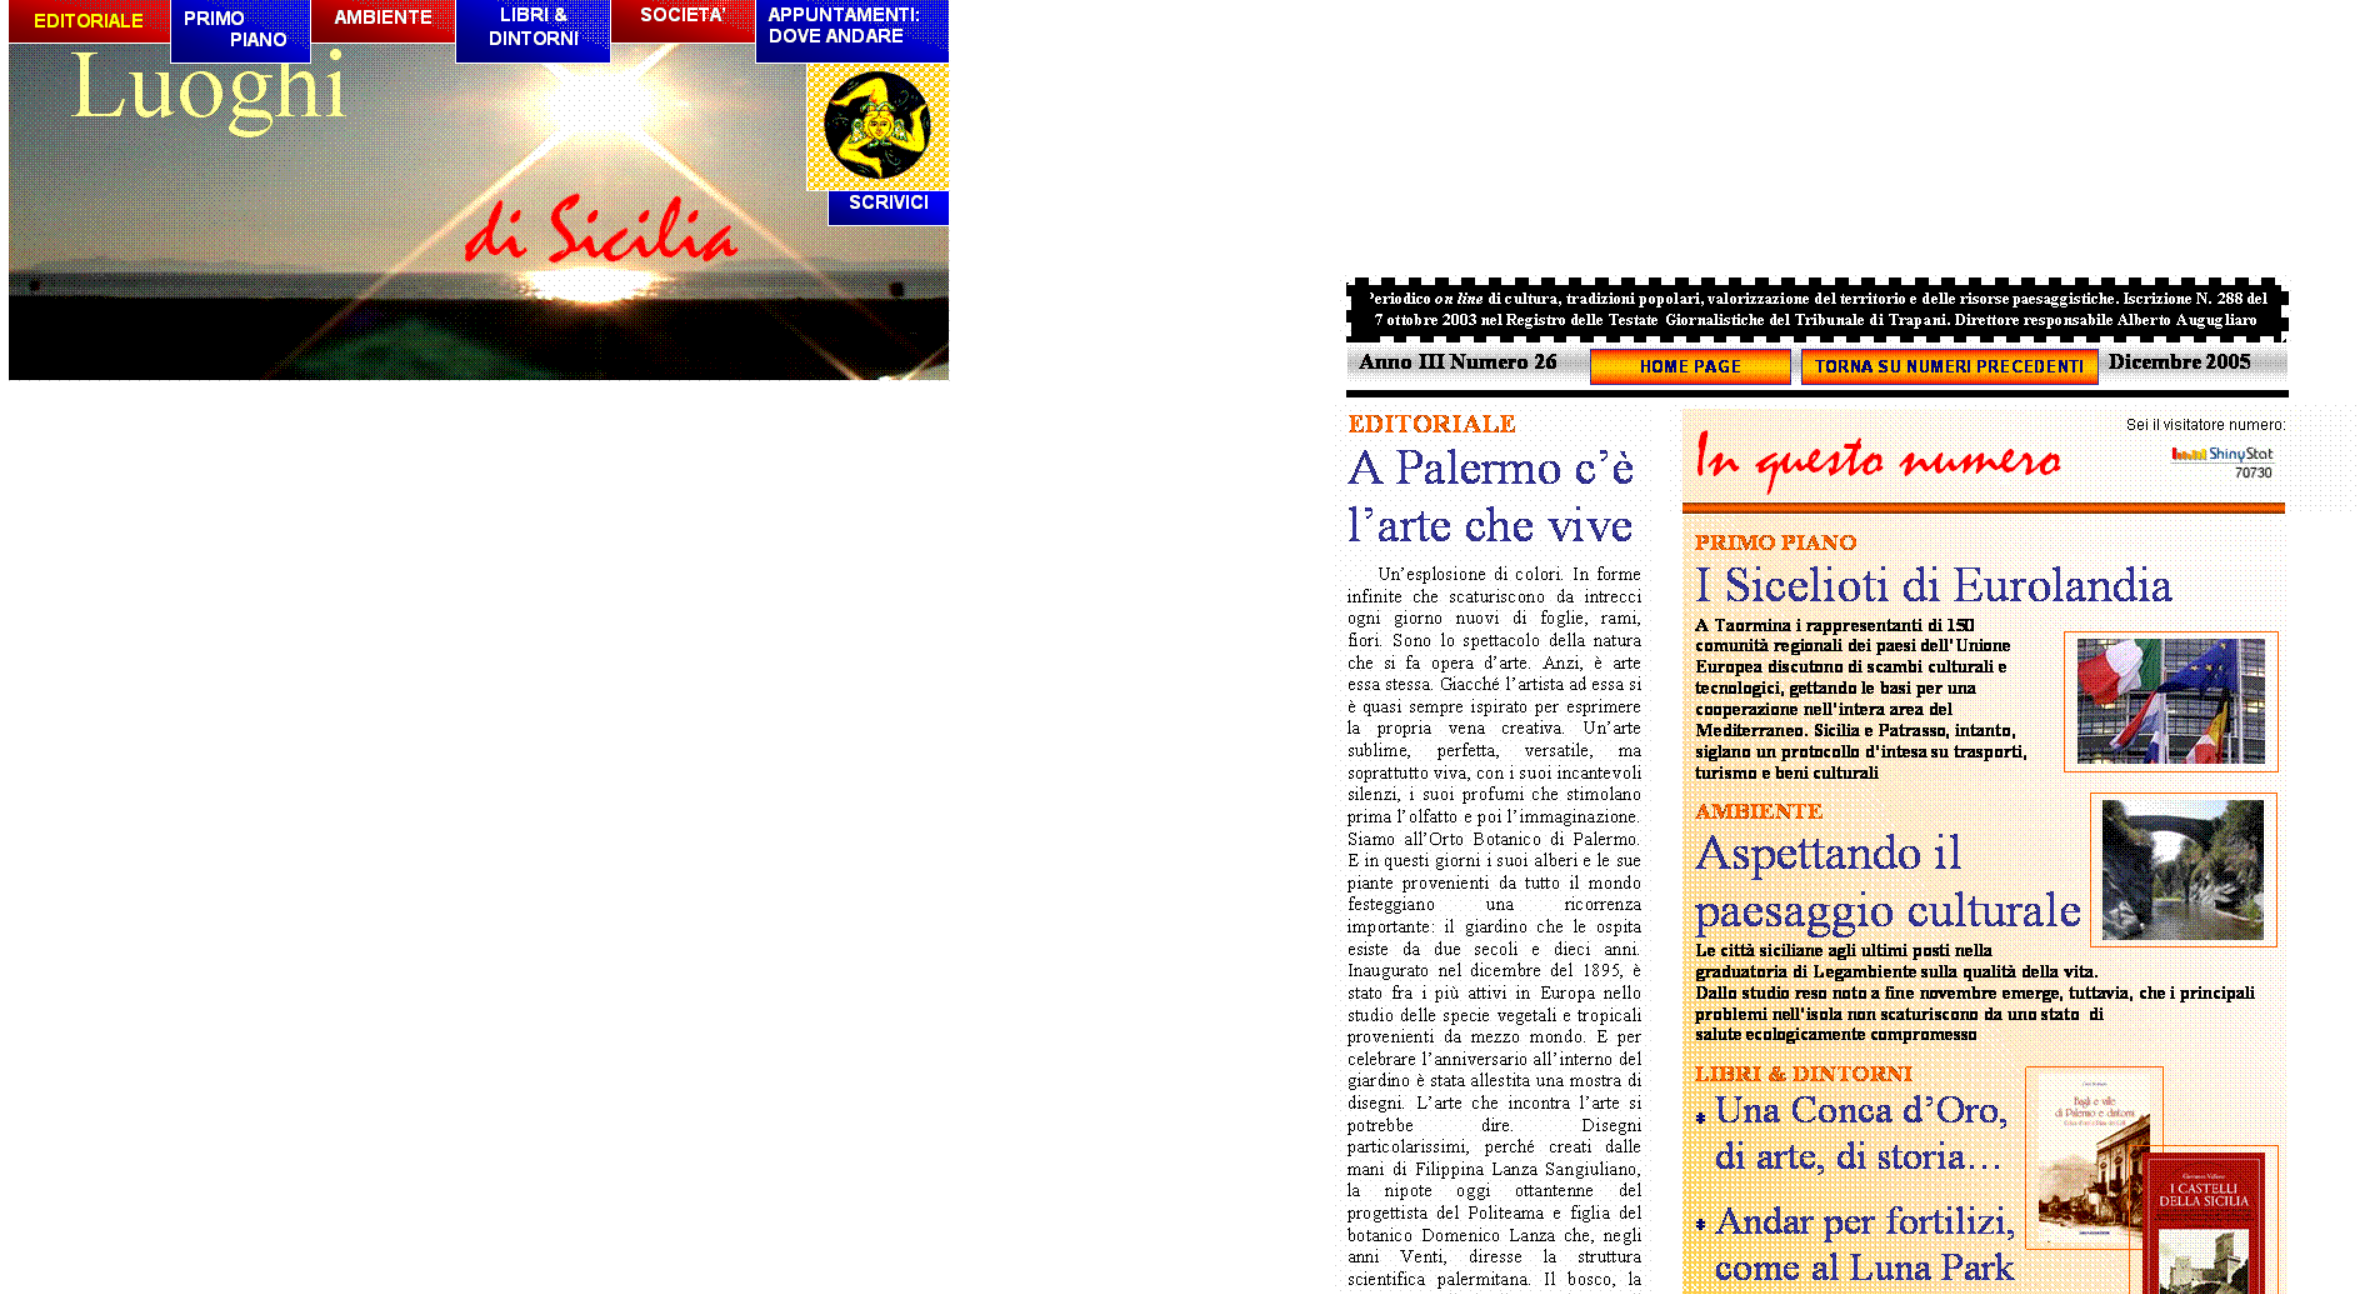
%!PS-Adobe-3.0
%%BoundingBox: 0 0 2380 1294
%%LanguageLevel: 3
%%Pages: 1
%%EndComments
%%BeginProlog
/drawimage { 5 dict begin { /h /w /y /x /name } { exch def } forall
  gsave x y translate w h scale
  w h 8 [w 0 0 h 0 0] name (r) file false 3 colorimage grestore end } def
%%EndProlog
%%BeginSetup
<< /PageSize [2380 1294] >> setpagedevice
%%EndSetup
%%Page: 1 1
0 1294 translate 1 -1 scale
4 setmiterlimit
1 setgray
0 0 2380 1294 rectfill
(images/1.raw) 8 0 943 382 drawimage
(images/2.raw) 8 0 163 44 drawimage
(images/3.raw) 169 0 143 64 drawimage
(images/4.raw) 309 0 147 44 drawimage
(images/5.raw) 454 0 158 64 drawimage
(images/6.raw) 609 0 147 44 drawimage
(images/9.raw) 827 184 123 43 drawimage
(images/8.raw) 806 59 145 133 drawimage
(images/7.raw) 754 0 196 64 drawimage
(images/10.raw) 1335 275 1022 1019 drawimage
showpage
%%EOF
